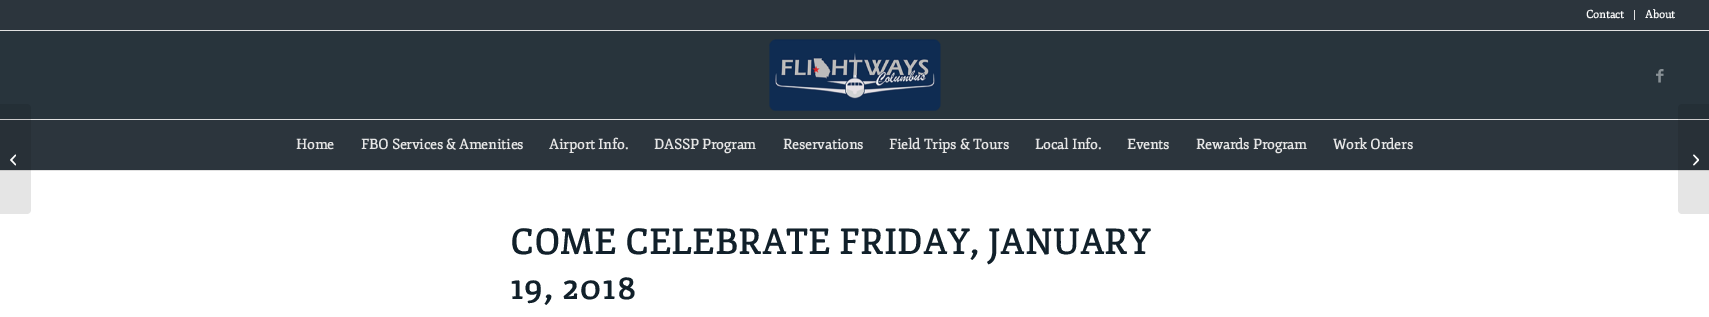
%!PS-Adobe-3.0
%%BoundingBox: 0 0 1709 317
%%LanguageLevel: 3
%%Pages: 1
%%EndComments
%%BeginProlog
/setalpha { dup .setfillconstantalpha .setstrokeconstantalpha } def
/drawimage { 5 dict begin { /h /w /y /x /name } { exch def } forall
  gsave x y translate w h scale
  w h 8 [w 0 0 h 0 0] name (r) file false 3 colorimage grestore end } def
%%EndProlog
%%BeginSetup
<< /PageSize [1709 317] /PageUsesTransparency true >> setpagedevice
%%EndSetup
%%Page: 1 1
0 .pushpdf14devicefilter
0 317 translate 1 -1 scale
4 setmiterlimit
0.157 0.204 0.235 setrgbcolor
0 0 1709 317 rectfill
0.882 setgray
0 170 1709 1 rectfill
0.173 0.208 0.239 setrgbcolor
0 120 1709 50 rectfill
0.882 setgray
0 119 1709 1 rectfill
1 setgray
0 171 1709 146 rectfill
0.1 setalpha
0 setgray
newpath 0 104 moveto 27 104 lineto 29 104 31 106 31 108 curveto 31 210 lineto 31 212 29 214 27 214 curveto 0 214 lineto closepath fill
1 setalpha
(images/1.raw) 10 154 6 12 drawimage
0.173 0.208 0.239 setrgbcolor
0 0 1709 30 rectfill
0.882 setgray
0 30 1709 1 rectfill
1634 10 1 10 rectfill
(images/2.raw) 769 39 172 72 drawimage
(images/3.raw) 1656 69 8 14 drawimage
0.1 setalpha
0 setgray
newpath 1682 104 moveto 1709 104 lineto 1709 214 lineto 1682 214 lineto 1680 214 1678 212 1678 210 curveto 1678 108 lineto 1678 106 1680 104 1682 104 curveto closepath fill
1 setalpha
(images/4.raw) 1693 154 6 12 drawimage
/Fjord-Bold [11 0 0 -11 0 0] selectfont
1 setgray
1586 18 moveto (Contact) show
1645 18 moveto (About) show
/Fjord-Bold [14 0 0 -14 0 0] selectfont
0.902 setgray
296 149 moveto (Home) show
361 149 moveto (FBO Services & Amenities) show
549 149 moveto (Airport Info.) show
654 149 moveto (DASSP Program) show
783 149 moveto (Reservations) show
889 149 moveto (Field Trips & Tours) show
1035 149 moveto (Local Info.) show
1127 149 moveto (Events) show
1196 149 moveto (Rewards Program) show
1333 149 moveto (Work Orders) show
/Fjord-Bold [34.5 0 0 -34.5 0 0] selectfont
0.067 0.125 0.165 setrgbcolor
510 254 moveto 1 0 (COME CELEBRATE FRIDAY, JANUARY) ashow
510 299 moveto 1 0 (19, 2018) ashow
.poppdf14devicefilter showpage
%%EOF
